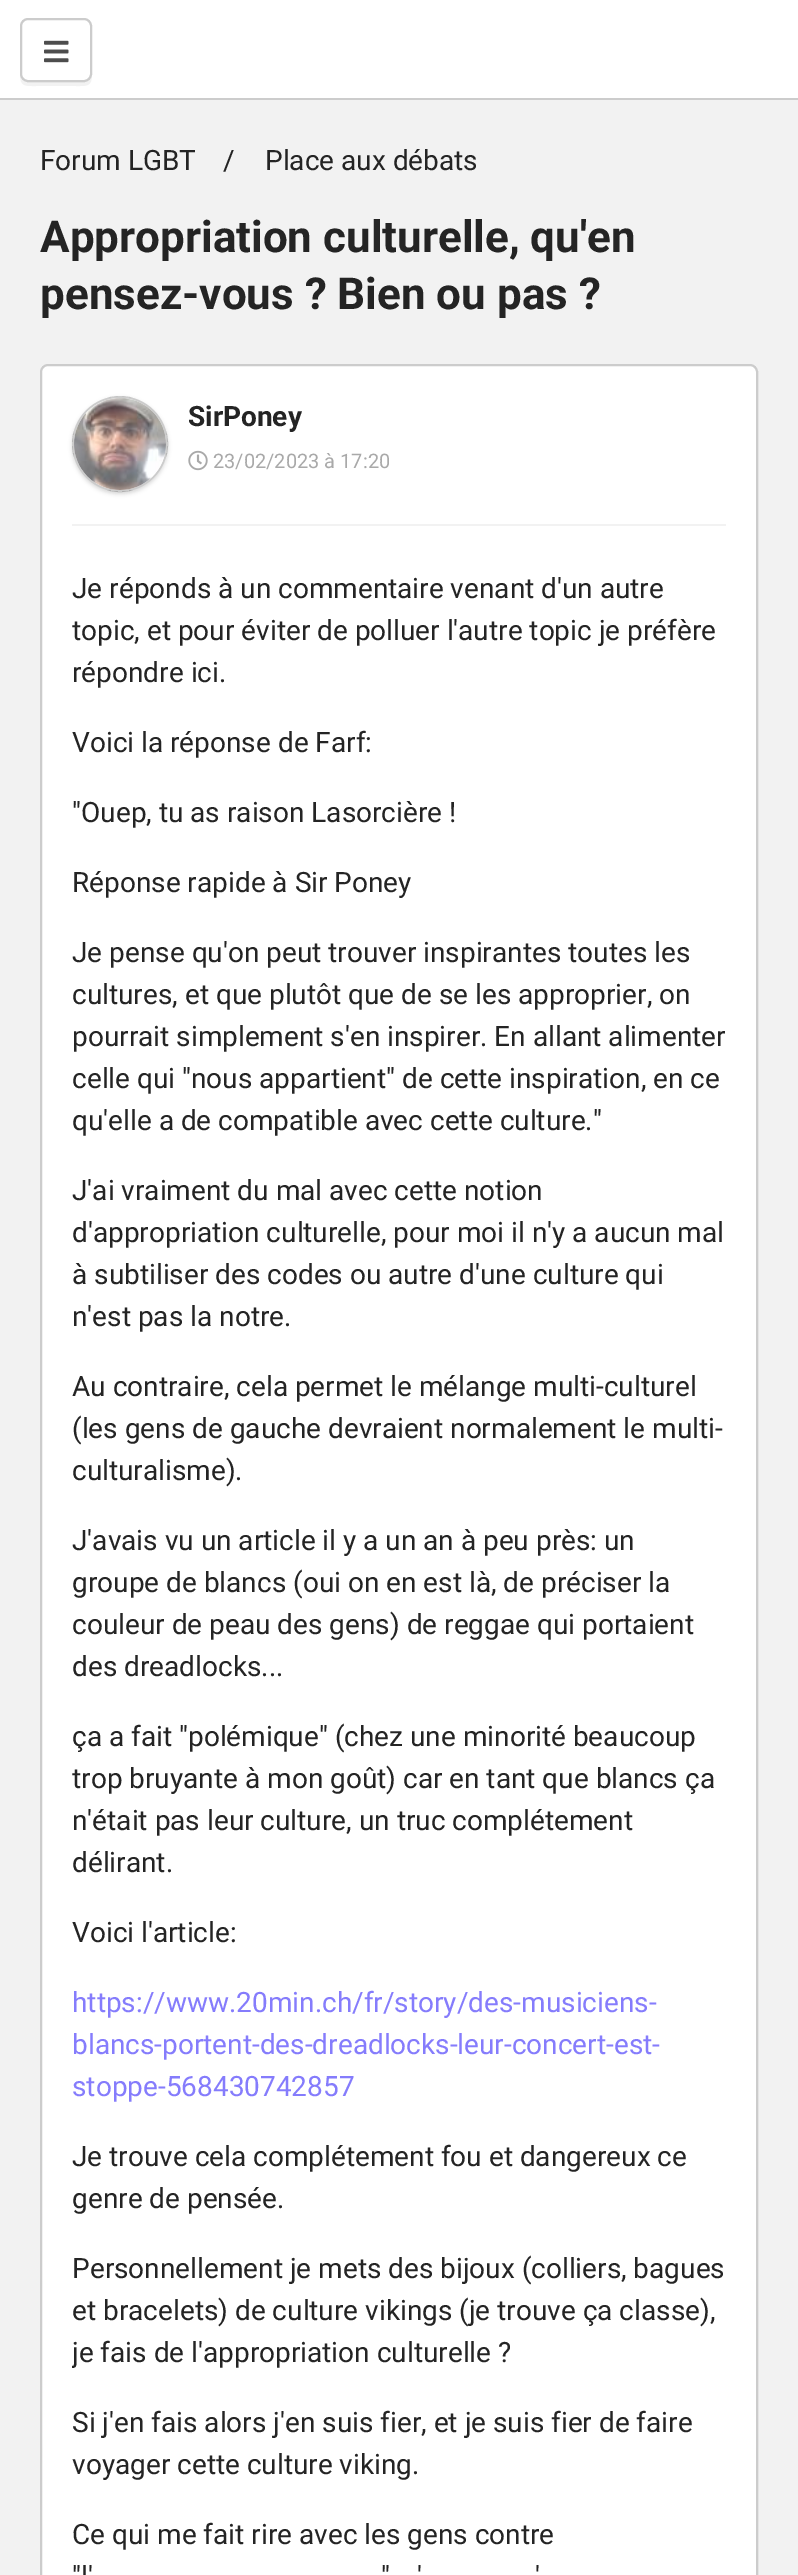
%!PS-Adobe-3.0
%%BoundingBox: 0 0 798 2575
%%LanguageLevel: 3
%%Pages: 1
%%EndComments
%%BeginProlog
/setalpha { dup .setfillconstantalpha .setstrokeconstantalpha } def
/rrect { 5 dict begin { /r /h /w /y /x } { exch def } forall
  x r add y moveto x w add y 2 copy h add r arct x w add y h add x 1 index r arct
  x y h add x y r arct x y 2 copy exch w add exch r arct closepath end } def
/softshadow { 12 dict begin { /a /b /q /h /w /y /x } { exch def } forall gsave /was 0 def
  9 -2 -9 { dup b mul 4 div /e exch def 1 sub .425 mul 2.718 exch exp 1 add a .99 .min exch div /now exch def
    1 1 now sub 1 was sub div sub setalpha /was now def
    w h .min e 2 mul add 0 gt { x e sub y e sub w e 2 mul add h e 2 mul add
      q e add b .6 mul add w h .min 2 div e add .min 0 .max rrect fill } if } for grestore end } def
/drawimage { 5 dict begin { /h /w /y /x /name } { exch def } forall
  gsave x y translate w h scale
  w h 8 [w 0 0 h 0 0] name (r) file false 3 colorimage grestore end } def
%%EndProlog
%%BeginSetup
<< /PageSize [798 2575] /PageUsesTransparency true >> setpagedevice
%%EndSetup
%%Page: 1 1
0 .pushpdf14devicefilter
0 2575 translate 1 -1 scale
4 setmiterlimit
0.949 setgray
0 0 798 2575 rectfill
1 setgray
0 0 798 98 rectfill
0.8 setgray
0 98 798 2 rectfill
0.949 setgray
newpath 20 74 moveto 20 87 25 86 37 86 curveto 75 86 lineto 87 86 92 87 92 74 curveto 92 78 88 82 84 82 curveto 28 82 lineto 24 82 20 78 20 74 curveto closepath fill
1 setgray
20 18 72 64 8 rrect fill
0.2 setalpha
0 setgray
2 setlinewidth
21 19 70 62 7 rrect stroke
1 setalpha
(images/1.raw) 44 40 25 23 drawimage
1 setgray
newpath 48 364 moveto 750 364 lineto 754.5 364 758 367.5 758 372 curveto 758 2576 lineto 40 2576 lineto 40 372 lineto 40 367.5 43.5 364 48 364 curveto closepath fill
0.2 setalpha
0 setgray
41 365 716 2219 7 rrect stroke
gsave
newpath 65 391 moveto 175 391 lineto 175 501 lineto 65 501 lineto closepath 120 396 moveto 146.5 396 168 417.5 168 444 curveto 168 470.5 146.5 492 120 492 curveto 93.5 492 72 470.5 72 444 curveto 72 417.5 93.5 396 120 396 curveto closepath eoclip newpath
1 setalpha
72 398 96 96 48 2 0.15 softshadow
grestore
newpath 120 444 47 0 360 arc closepath stroke
1 setalpha
(images/2.raw) 74 398 92 92 drawimage
(images/3.raw) 188 450 20 21 drawimage
0.949 setgray
72 524 654 2 rectfill
/Roboto-Regular [28 0 0 -28 0 0] selectfont
0.141 setgray
40 170 moveto (Forum LGBT) show
223 170 moveto (/) show
265 170 moveto (Place aux débats) show
/Roboto-Bold [44 0 0 -44 0 0] selectfont
40 252 moveto (Appropriation culturelle, qu'en) show
40 309 moveto (pensez-vous ? Bien ou pas ?) show
/Roboto-Bold [28 0 0 -28 0 0] selectfont
188 426 moveto (SirPoney) show
/Roboto-Regular [20 0 0 -20 0 0] selectfont
0.663 setgray
213 468 moveto (23/02/2023 à 17:20) show
/Roboto-Regular [28 0 0 -28 0 0] selectfont
0.141 setgray
72 598 moveto (Je réponds à un commentaire venant d'un autre) show
72 640 moveto (topic, et pour éviter de polluer l'autre topic je préfère) show
72 682 moveto (répondre ici.) show
72 752 moveto (Voici la réponse de Farf:) show
72 822 moveto ("Ouep, tu as raison Lasorcière !) show
72 892 moveto (Réponse rapide à Sir Poney) show
72 962 moveto (Je pense qu'on peut trouver inspirantes toutes les) show
72 1004 moveto (cultures, et que plutôt que de se les approprier, on) show
72 1046 moveto (pourrait simplement s'en inspirer. En allant alimenter) show
72 1088 moveto (celle qui "nous appartient" de cette inspiration, en ce) show
72 1130 moveto (qu'elle a de compatible avec cette culture.") show
72 1200 moveto (J'ai vraiment du mal avec cette notion) show
72 1242 moveto (d'appropriation culturelle, pour moi il n'y a aucun mal) show
72 1284 moveto (à subtiliser des codes ou autre d'une culture qui) show
72 1326 moveto (n'est pas la notre.) show
72 1396 moveto (Au contraire, cela permet le mélange multi-culturel) show
72 1438 moveto (\(les gens de gauche devraient normalement le multi-) show
72 1480 moveto (culturalisme\).) show
72 1550 moveto (J'avais vu un article il y a un an à peu près: un) show
72 1592 moveto (groupe de blancs \(oui on en est là, de préciser la) show
72 1634 moveto (couleur de peau des gens\) de reggae qui portaient) show
72 1676 moveto (des dreadlocks...) show
72 1746 moveto (ça a fait "polémique" \(chez une minorité beaucoup) show
72 1788 moveto (trop bruyante à mon goût\) car en tant que blancs ça) show
72 1830 moveto (n'était pas leur culture, un truc complétement) show
72 1872 moveto (délirant.) show
72 1942 moveto (Voici l'article:) show
0.522 0.486 0.988 setrgbcolor
72 2012 moveto (https://www.20min.ch/fr/story/des-musiciens-) show
72 2054 moveto (blancs-portent-des-dreadlocks-leur-concert-est-) show
72 2096 moveto (stoppe-568430742857) show
0.141 setgray
72 2166 moveto (Je trouve cela complétement fou et dangereux ce) show
72 2208 moveto (genre de pensée.) show
72 2278 moveto (Personnellement je mets des bijoux \(colliers, bagues) show
72 2320 moveto (et bracelets\) de culture vikings \(je trouve ça classe\),) show
gsave
72 540 654 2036 rectclip
72 2362 moveto (je fais de l'appropriation culturelle ?) show
grestore
72 2432 moveto (Si j'en fais alors j'en suis fier, et je suis fier de faire) show
72 2474 moveto (voyager cette culture viking.) show
72 2544 moveto (Ce qui me fait rire avec les gens contre) show
72 2586 moveto ("l') show
381 2586 moveto (") show
417 2586 moveto (') show
535 2586 moveto (') show
.poppdf14devicefilter showpage
%%EOF
